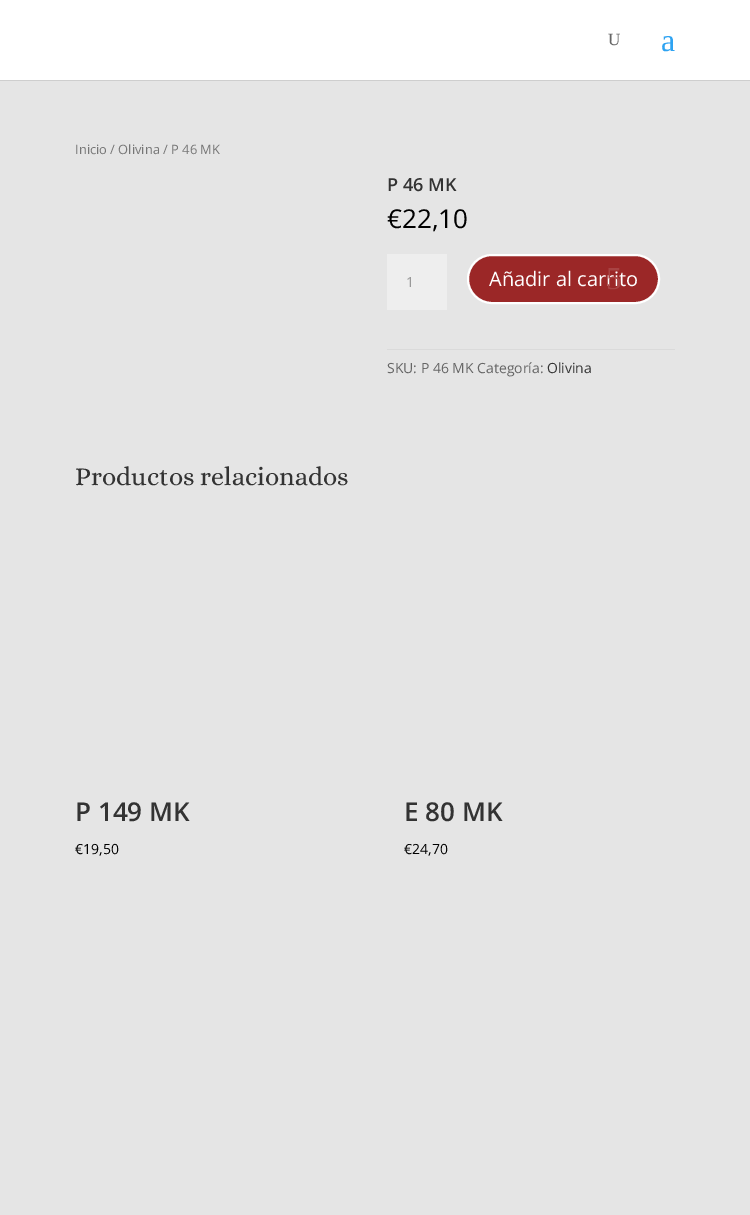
%!PS-Adobe-3.0
%%BoundingBox: 0 0 750 1215
%%LanguageLevel: 3
%%Pages: 1
%%EndComments
%%BeginProlog
/rrect { 5 dict begin { /r /h /w /y /x } { exch def } forall
  x r add y moveto x w add y 2 copy h add r arct x w add y h add x 1 index r arct
  x y h add x y r arct x y 2 copy exch w add exch r arct closepath end } def
%%EndProlog
%%BeginSetup
<< /PageSize [750 1215] >> setpagedevice
%%EndSetup
%%Page: 1 1
0 1215 translate 1 -1 scale
4 setmiterlimit
1 setgray
0 0 750 1215 rectfill
0.808 setgray
0 80 750 1 rectfill
0.898 setgray
0 81 750 1134 rectfill
0.933 setgray
387 254 60 56 rectfill
0.608 0.153 0.153 setrgbcolor
468 255 191 48 24 rrect gsave fill grestore
1 setgray
2 setlinewidth
stroke
0.855 setgray
387 349 288 1 rectfill
/LiberationSerif-Regular [17 0 0 -17 0 0] selectfont
0.4 setgray
608 45 moveto (U) show
/LiberationSerif-Regular [32 0 0 -32 0 0] selectfont
0.18 0.639 0.949 setrgbcolor
661 51 moveto (a) show
/OpenSans-Regular [12.9 0 0 -12.9 0 0] selectfont
0.463 setgray
75 154 moveto (Inicio / Olivina / P 46 MK) show
/OpenSans-SemiBold [18 0 0 -18 0 0] selectfont
0.2 setgray
387 191 moveto (P 46 MK) show
/OpenSans-Regular [26 0 0 -26 0 0] selectfont
0 setgray
387 228 moveto (€22,10) show
/OpenSans-Regular [14 0 0 -14 0 0] selectfont
0.6 setgray
406 287 moveto (1) show
/OpenSans-Regular [20 0 0 -20 0 0] selectfont
1 setgray
489 286 moveto (Añadir al carrito) show
/LiberationSerif-Regular [32 0 0 -32 0 0] selectfont
0.659 0.263 0.263 setrgbcolor
606 289 moveto (5) show
/OpenSans-Regular [14 0 0 -14 0 0] selectfont
0.4 setgray
387 373 moveto (SKU: P 46 MK Categoría:) show
0.2 setgray
547 373 moveto (Olivina) show
/Alice-Regular [26 0 0 -26 0 0] selectfont
75 485 moveto (Productos relacionados) show
/OpenSans-SemiBold [26 0 0 -26 0 0] selectfont
75 821 moveto (P 149 MK) show
/OpenSans-Regular [14 0 0 -14 0 0] selectfont
0 setgray
75 854 moveto (€19,50) show
/OpenSans-SemiBold [26 0 0 -26 0 0] selectfont
0.2 setgray
404 821 moveto (E 80 MK) show
/OpenSans-Regular [14 0 0 -14 0 0] selectfont
0 setgray
404 854 moveto (€24,70) show
showpage
%%EOF
